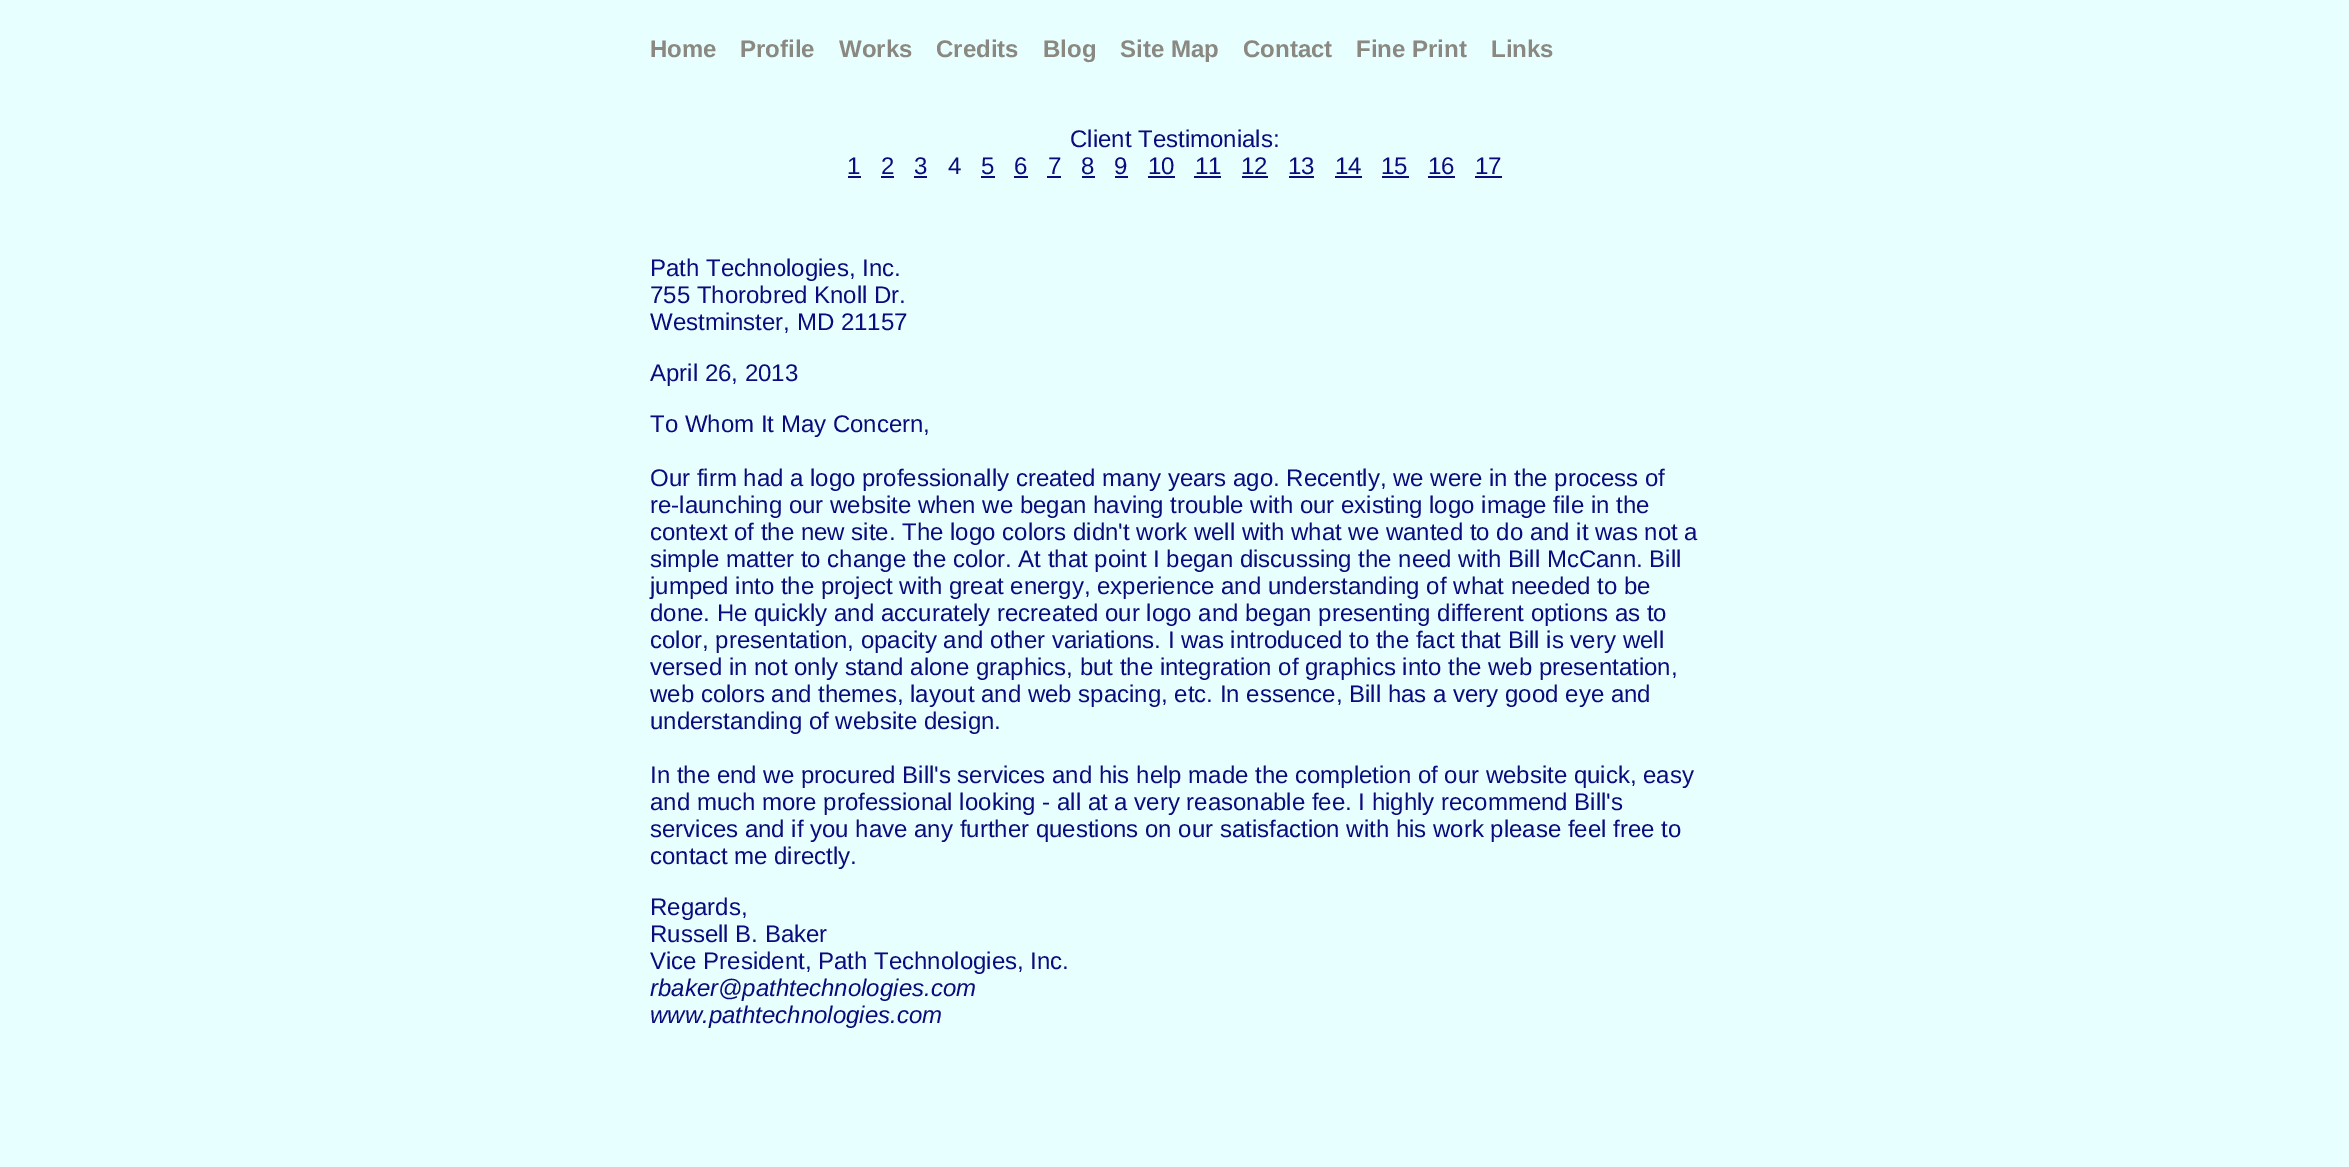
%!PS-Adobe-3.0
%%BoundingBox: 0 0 2349 1167
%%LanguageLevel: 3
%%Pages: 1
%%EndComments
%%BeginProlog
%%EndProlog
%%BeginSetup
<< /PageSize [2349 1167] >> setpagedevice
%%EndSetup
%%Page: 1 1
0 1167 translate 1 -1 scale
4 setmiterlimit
0.906 1 1 setrgbcolor
0 0 2349 1167 rectfill
0.043 0.043 0.49 setrgbcolor
848 176 13 2 rectfill
881 176 13 2 rectfill
914 176 13 2 rectfill
981 176 14 2 rectfill
1014 176 14 2 rectfill
1047 176 14 2 rectfill
1082 176 13 2 rectfill
1115 176 13 2 rectfill
1148 176 27 2 rectfill
1194 176 27 2 rectfill
1242 176 26 2 rectfill
1289 176 25 2 rectfill
1335 176 27 2 rectfill
1382 176 27 2 rectfill
1428 176 27 2 rectfill
1475 176 27 2 rectfill
/LiberationSans-Bold [24 0 0 -24 0 0] selectfont
0.541 0.533 0.502 setrgbcolor
650 57 moveto (Home) show
740 57 moveto (Profile) show
839 57 moveto (Works) show
936 57 moveto (Credits) show
1043 57 moveto (Blog) show
1120 57 moveto (Site Map) show
1243 57 moveto (Contact) show
1356 57 moveto (Fine Print) show
1491 57 moveto (Links) show
/LiberationSans-Regular [24 0 0 -24 0 0] selectfont
0.043 0.043 0.49 setrgbcolor
1070 147 moveto (Client Testimonials:) show
847 174 moveto (1) show
881 174 moveto (2) show
914 174 moveto (3) show
948 174 moveto (4) show
981 174 moveto (5) show
1014 174 moveto (6) show
1048 174 moveto (7) show
1081 174 moveto (8) show
1114 174 moveto (9) show
1148 174 moveto (10) show
1195 174 moveto (11) show
1241 174 moveto (12) show
1288 174 moveto (13) show
1335 174 moveto (14) show
1381 174 moveto (15) show
1428 174 moveto (16) show
1475 174 moveto (17) show
650 276 moveto (Path Technologies, Inc.) show
650 303 moveto (755 Thorobred Knoll Dr.) show
650 330 moveto (Westminster, MD 21157) show
650 381 moveto (April 26, 2013) show
650 432 moveto (To Whom It May Concern,) show
650 486 moveto (Our firm had a logo professionally created many years ago. Recently, we were in the process of) show
650 513 moveto (re-launching our website when we began having trouble with our existing logo image file in the) show
650 540 moveto (context of the new site. The logo colors didn't work well with what we wanted to do and it was not a) show
650 567 moveto (simple matter to change the color. At that point I began discussing the need with Bill McCann. Bill) show
650 594 moveto (jumped into the project with great energy, experience and understanding of what needed to be) show
650 621 moveto (done. He quickly and accurately recreated our logo and began presenting different options as to) show
650 648 moveto (color, presentation, opacity and other variations. I was introduced to the fact that Bill is very well) show
650 675 moveto (versed in not only stand alone graphics, but the integration of graphics into the web presentation,) show
650 702 moveto (web colors and themes, layout and web spacing, etc. In essence, Bill has a very good eye and) show
650 729 moveto (understanding of website design.) show
650 783 moveto (In the end we procured Bill's services and his help made the completion of our website quick, easy) show
650 810 moveto (and much more professional looking - all at a very reasonable fee. I highly recommend Bill's) show
650 837 moveto (services and if you have any further questions on our satisfaction with his work please feel free to) show
650 864 moveto (contact me directly.) show
650 915 moveto (Regards,) show
650 942 moveto (Russell B. Baker) show
650 969 moveto (Vice President, Path Technologies, Inc.) show
/LiberationSans-Italic [24 0 0 -24 0 0] selectfont
650 996 moveto (rbaker@pathtechnologies.com) show
650 1023 moveto (www.pathtechnologies.com) show
showpage
%%EOF
